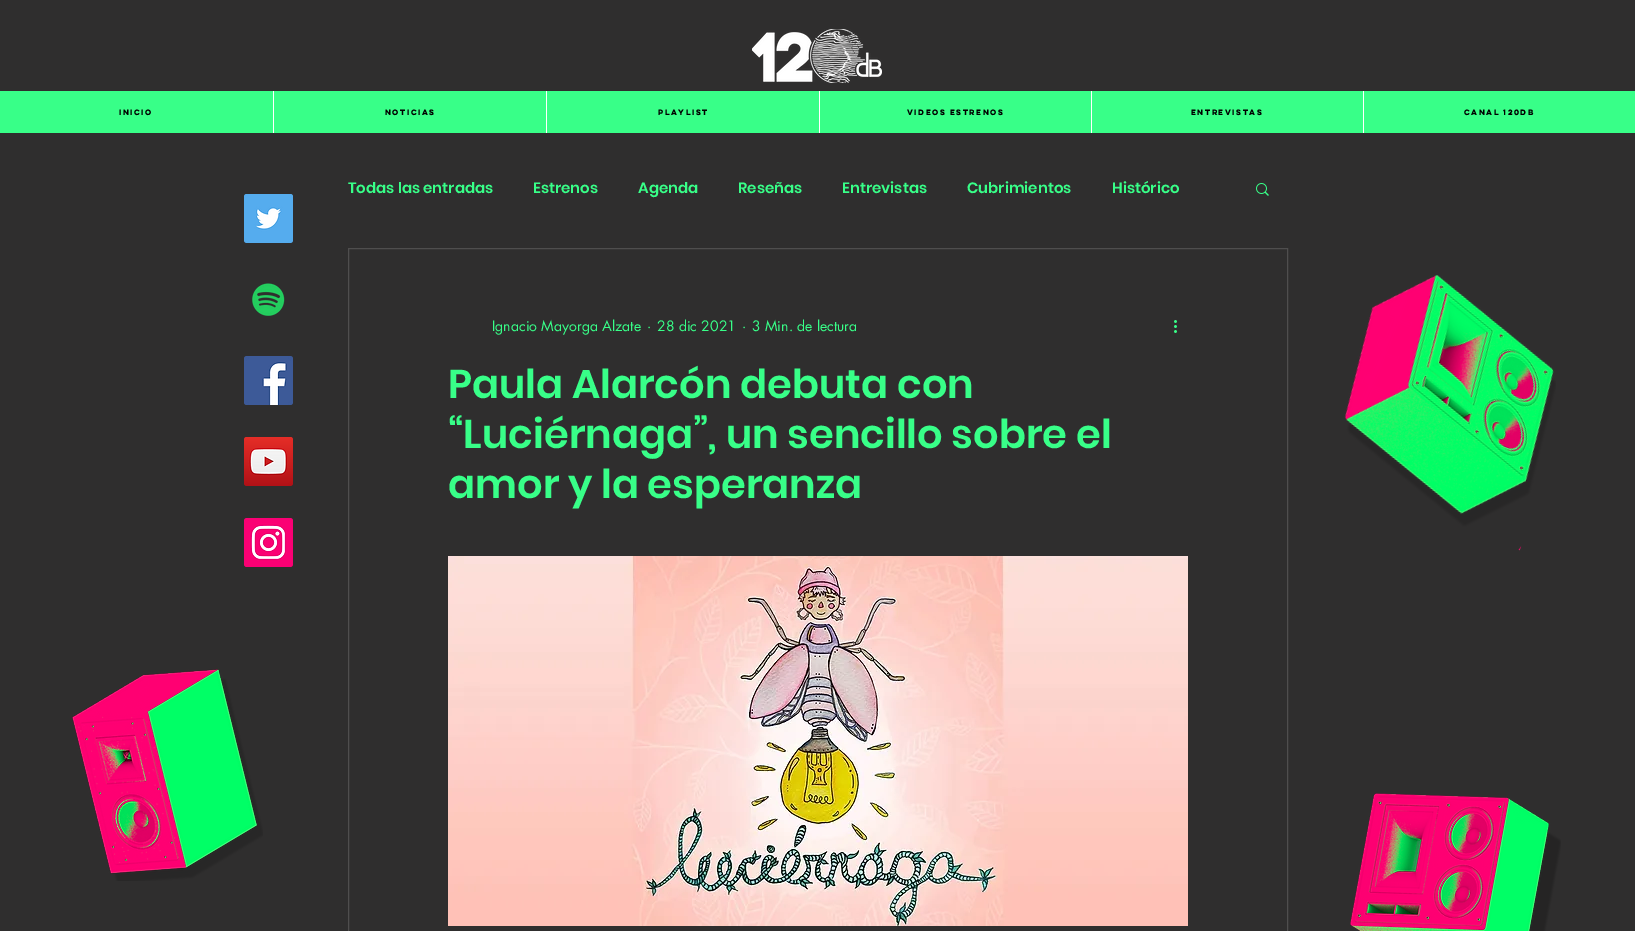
%!PS-Adobe-3.0
%%BoundingBox: 0 0 1635 931
%%LanguageLevel: 3
%%Pages: 1
%%EndComments
%%BeginProlog
/drawimage { 5 dict begin { /h /w /y /x /name } { exch def } forall
  gsave x y translate w h scale
  w h 8 [w 0 0 h 0 0] name (r) file false 3 colorimage grestore end } def
%%EndProlog
%%BeginSetup
<< /PageSize [1635 931] >> setpagedevice
%%EndSetup
%%Page: 1 1
0 931 translate 1 -1 scale
4 setmiterlimit
0.184 0.18 0.18 setrgbcolor
0 0 1635 931 rectfill
(images/1.raw) 752 29 130 54 drawimage
0.22 1 0.533 setrgbcolor
0 91 1635 42 rectfill
1 setgray
273 91 1 42 rectfill
546 91 1 42 rectfill
819 91 1 42 rectfill
1091 91 1 42 rectfill
1363 91 1 42 rectfill
(images/2.raw) 244 194 49 49 drawimage
(images/3.raw) 252 283 33 33 drawimage
(images/4.raw) 244 356 49 49 drawimage
(images/5.raw) 244 437 49 49 drawimage
(images/6.raw) 244 518 49 49 drawimage
(images/7.raw) 1344 275 212 276 drawimage
(images/8.raw) 72 669 191 212 drawimage
(images/9.raw) 1350 793 211 138 drawimage
(images/10.raw) 1256 183 13 13 drawimage
0.31 0.306 0.306 setrgbcolor
348.5 248.5 939 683 rectstroke
(images/11.raw) 1174 320 3 13 drawimage
(images/12.raw) 448 556 740 370 drawimage
/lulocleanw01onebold-Bold [7 0 0 -7 0 0] selectfont
0 setgray
119 115 moveto (INICIO) show
385 115 moveto (NOTICIAS) show
658 115 moveto (PLAYLIST) show
907 115 moveto (VIDEOS ESTRENOS) show
1191 115 moveto (ENTREVISTAS) show
1464 115 moveto (CANAL 120dB) show
/Poppins-SemiBold [15 0 0 -15 0 0] selectfont
0.22 1 0.533 setrgbcolor
348 193 moveto (Todas las entradas) show
533 193 moveto (Estrenos) show
638 193 moveto (Agenda) show
738 193 moveto (Reseñas) show
842 193 moveto (Entrevistas) show
967 193 moveto (Cubrimientos) show
1112 193 moveto (Histórico) show
/futura-Regular [14 0 0 -14 0 0] selectfont
492 331 moveto (Ignacio Mayorga Alzate) show
647 331 moveto (·) show
657 331 moveto (28 dic 2021) show
742 331 moveto (·) show
752 331 moveto (3 Min. de lectura) show
/Poppins-SemiBold [40 0 0 -40 0 0] selectfont
448 398 moveto (Paula Alarcón debuta con) show
448 448 moveto (“Luciérnaga”, un sencillo sobre el) show
448 498 moveto (amor y la esperanza) show
showpage
%%EOF
